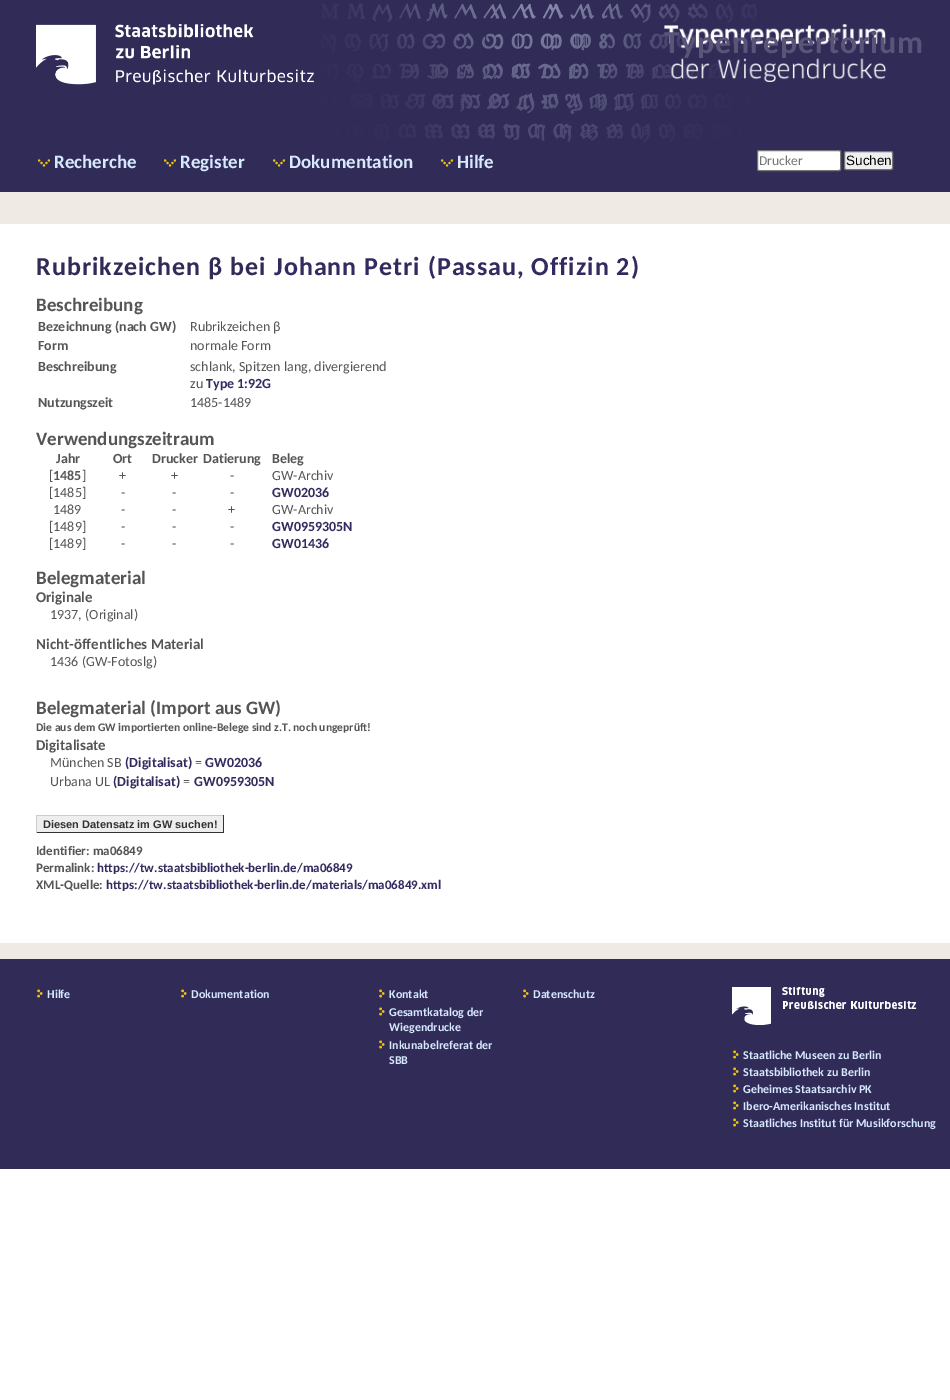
%!PS-Adobe-3.0
%%BoundingBox: 0 0 950 1400
%%LanguageLevel: 3
%%Pages: 1
%%EndComments
%%BeginProlog
/rrect { 5 dict begin { /r /h /w /y /x } { exch def } forall
  x r add y moveto x w add y 2 copy h add r arct x w add y h add x 1 index r arct
  x y h add x y r arct x y 2 copy exch w add exch r arct closepath end } def
/drawimage { 5 dict begin { /h /w /y /x /name } { exch def } forall
  gsave x y translate w h scale
  w h 8 [w 0 0 h 0 0] name (r) file false 3 colorimage grestore end } def
%%EndProlog
%%BeginSetup
<< /PageSize [950 1400] >> setpagedevice
%%EndSetup
%%Page: 1 1
0 1400 translate 1 -1 scale
4 setmiterlimit
1 setgray
0 0 950 1400 rectfill
0.192 0.169 0.345 setrgbcolor
0 0 950 192 rectfill
(images/1.raw) 321 3 436 139 drawimage
(images/2.raw) 36 24 278 61 drawimage
(images/3.raw) 664 24 222 58 drawimage
(images/4.raw) 38 159 12 8 drawimage
(images/4.raw) 164 159 12 8 drawimage
(images/4.raw) 273 159 12 8 drawimage
(images/4.raw) 441 159 12 8 drawimage
1 setgray
757.5 150.5 83 20 1.5 rrect gsave fill grestore
0.463 setgray
stroke
0.937 setgray
844.5 151.5 48 18 1.5 rrect gsave fill grestore
0.463 setgray
stroke
0.937 0.922 0.894 setrgbcolor
0 192 950 32 rectfill
0.933 setgray
37 816 186 16 rectfill
0.8 setgray
36 815 188 1 rectfill
0.2 setgray
223 815 1 18 rectfill
36 832 188 1 rectfill
0.8 setgray
36 815 1 18 rectfill
0.937 0.922 0.894 setrgbcolor
0 943 950 16 rectfill
0.192 0.169 0.345 setrgbcolor
0 959 950 210 rectfill
(images/5.raw) 37 989 6 9 drawimage
(images/5.raw) 181 989 6 9 drawimage
(images/5.raw) 379 989 6 9 drawimage
(images/5.raw) 379 1007 6 9 drawimage
(images/5.raw) 379 1040 6 9 drawimage
(images/5.raw) 523 989 6 9 drawimage
(images/6.raw) 732 987 185 38 drawimage
(images/5.raw) 733 1050 6 9 drawimage
(images/5.raw) 733 1067 6 9 drawimage
(images/5.raw) 733 1084 6 9 drawimage
(images/5.raw) 733 1101 6 9 drawimage
(images/5.raw) 733 1118 6 9 drawimage
/Carlito-Bold [32 0 0 -32 0 0] selectfont
0.349 0.329 0.471 setrgbcolor
664 53 moveto 1 0 (Typenrepertorium) ashow
/Carlito-Bold [19 0 0 -19 0 0] selectfont
0.843 0.914 1 setrgbcolor
54 168 moveto (Recherche) show
180 168 moveto (Register) show
289 168 moveto (Dokumentation) show
457 168 moveto (Hilfe) show
/Carlito-Regular [13.5 0 0 -13.5 0 0] selectfont
0.459 setgray
759 165 moveto (Drucker) show
/LiberationSans-Regular [13.5 0 0 -13.5 0 0] selectfont
0 setgray
846 165 moveto (Suchen) show
/Carlito-Bold [26 0 0 -26 0 0] selectfont
0.192 0.169 0.345 setrgbcolor
36 275 moveto 1 0 (Rubrikzeichen β bei) ashow
0.192 0.169 0.373 setrgbcolor
274 275 moveto 1 0 (Johann Petri \(Passau, Offizin 2\)) ashow
/Carlito-Bold [19 0 0 -19 0 0] selectfont
0.333 setgray
36 311 moveto (Beschreibung) show
/Carlito-Bold [14 0 0 -14 0 0] selectfont
38 331 moveto (Bezeichnung \(nach GW\)) show
/Carlito-Regular [14 0 0 -14 0 0] selectfont
190 331 moveto (Rubrikzeichen β) show
/Carlito-Bold [14 0 0 -14 0 0] selectfont
38 350 moveto (Form) show
/Carlito-Regular [14 0 0 -14 0 0] selectfont
190 350 moveto (normale Form) show
/Carlito-Bold [14 0 0 -14 0 0] selectfont
38 371 moveto (Beschreibung) show
/Carlito-Regular [14 0 0 -14 0 0] selectfont
190 371 moveto (schlank, Spitzen lang, divergierend) show
190 388 moveto (zu) show
/Carlito-Bold [14 0 0 -14 0 0] selectfont
0.192 0.169 0.373 setrgbcolor
206 388 moveto (Type 1:92G) show
0.333 setgray
38 407 moveto (Nutzungszeit) show
/Carlito-Regular [14 0 0 -14 0 0] selectfont
190 407 moveto (1485-1489) show
/Carlito-Bold [19 0 0 -19 0 0] selectfont
36 445 moveto (Verwendungszeitraum) show
/Carlito-Bold [14 0 0 -14 0 0] selectfont
56 463 moveto (Jahr) show
113 463 moveto (Ort) show
152 463 moveto (Drucker) show
203 463 moveto (Datierung) show
272 463 moveto (Beleg) show
/Carlito-Regular [14 0 0 -14 0 0] selectfont
49 480 moveto ([) show
/Carlito-Bold [14 0 0 -14 0 0] selectfont
53 480 moveto (1485) show
/Carlito-Regular [14 0 0 -14 0 0] selectfont
82 480 moveto (]) show
119 480 moveto (+) show
171 480 moveto (+) show
230 480 moveto (-) show
272 480 moveto (GW-Archiv) show
49 497 moveto ([1485]) show
121 497 moveto (-) show
172 497 moveto (-) show
230 497 moveto (-) show
/Carlito-Bold [14 0 0 -14 0 0] selectfont
0.192 0.169 0.373 setrgbcolor
272 497 moveto (GW02036) show
/Carlito-Regular [14 0 0 -14 0 0] selectfont
0.333 setgray
53 514 moveto (1489) show
121 514 moveto (-) show
172 514 moveto (-) show
228 514 moveto (+) show
272 514 moveto (GW-Archiv) show
49 531 moveto ([1489]) show
121 531 moveto (-) show
172 531 moveto (-) show
230 531 moveto (-) show
/Carlito-Bold [14 0 0 -14 0 0] selectfont
0.192 0.169 0.373 setrgbcolor
272 531 moveto (GW0959305N) show
/Carlito-Regular [14 0 0 -14 0 0] selectfont
0.333 setgray
49 548 moveto ([1489]) show
121 548 moveto (-) show
172 548 moveto (-) show
230 548 moveto (-) show
/Carlito-Bold [14 0 0 -14 0 0] selectfont
0.192 0.169 0.373 setrgbcolor
272 548 moveto (GW01436) show
/Carlito-Bold [19 0 0 -19 0 0] selectfont
0.333 setgray
36 584 moveto (Belegmaterial) show
/Carlito-Bold [15 0 0 -15 0 0] selectfont
36 602 moveto (Originale) show
/Carlito-Regular [14 0 0 -14 0 0] selectfont
50 619 moveto (1937, \(Original\)) show
/Carlito-Bold [15 0 0 -15 0 0] selectfont
36 649 moveto (Nicht-öffentliches Material) show
/Carlito-Regular [14 0 0 -14 0 0] selectfont
50 666 moveto (1436 \(GW-Fotoslg\)) show
/Carlito-Bold [19 0 0 -19 0 0] selectfont
36 714 moveto (Belegmaterial \(Import aus GW\)) show
/Carlito-Bold [11.6 0 0 -11.6 0 0] selectfont
36 731 moveto (Die aus dem GW importierten online-Belege sind z.T. noch ungeprüft!) show
/Carlito-Bold [15 0 0 -15 0 0] selectfont
36 750 moveto (Digitalisate) show
/Carlito-Regular [14 0 0 -14 0 0] selectfont
50 767 moveto (München SB) show
/Carlito-Bold [14 0 0 -14 0 0] selectfont
0.192 0.169 0.373 setrgbcolor
125 767 moveto (\(Digitalisat\)) show
/Carlito-Regular [14 0 0 -14 0 0] selectfont
0.333 setgray
195 767 moveto (=) show
/Carlito-Bold [14 0 0 -14 0 0] selectfont
0.192 0.169 0.373 setrgbcolor
205 767 moveto (GW02036) show
/Carlito-Regular [14 0 0 -14 0 0] selectfont
0.333 setgray
50 786 moveto (Urbana UL) show
/Carlito-Bold [14 0 0 -14 0 0] selectfont
0.192 0.169 0.373 setrgbcolor
113 786 moveto (\(Digitalisat\)) show
/Carlito-Regular [14 0 0 -14 0 0] selectfont
0.333 setgray
183 786 moveto (=) show
/Carlito-Bold [14 0 0 -14 0 0] selectfont
0.192 0.169 0.373 setrgbcolor
194 786 moveto (GW0959305N) show
/LiberationSans-Bold [11 0 0 -11 0 0] selectfont
0.2 setgray
43 828 moveto (Diesen Datensatz im GW suchen!) show
/Carlito-Bold [13 0 0 -13 0 0] selectfont
0.333 setgray
36 855 moveto (Identifier: ma06849) show
36 872 moveto (Permalink:) show
0.192 0.169 0.373 setrgbcolor
97 872 moveto (https://tw.staatsbibliothek-berlin.de/ma06849) show
0.333 setgray
36 889 moveto (XML-Quelle:) show
0.192 0.169 0.373 setrgbcolor
106 889 moveto (https://tw.staatsbibliothek-berlin.de/materials/ma06849.xml) show
/Carlito-Bold [12 0 0 -12 0 0] selectfont
0.843 0.914 1 setrgbcolor
47 998 moveto (Hilfe) show
191 998 moveto (Dokumentation) show
389 998 moveto (Kontakt) show
389 1016 moveto (Gesamtkatalog der) show
389 1031 moveto (Wiegendrucke) show
389 1049 moveto (Inkunabelreferat der) show
389 1064 moveto (SBB) show
533 998 moveto (Datenschutz) show
743 1059 moveto (Staatliche Museen zu Berlin) show
743 1076 moveto (Staatsbibliothek zu Berlin) show
743 1093 moveto (Geheimes Staatsarchiv PK) show
743 1110 moveto (Ibero-Amerikanisches Institut) show
743 1127 moveto (Staatliches Institut für Musikforschung) show
showpage
%%EOF
